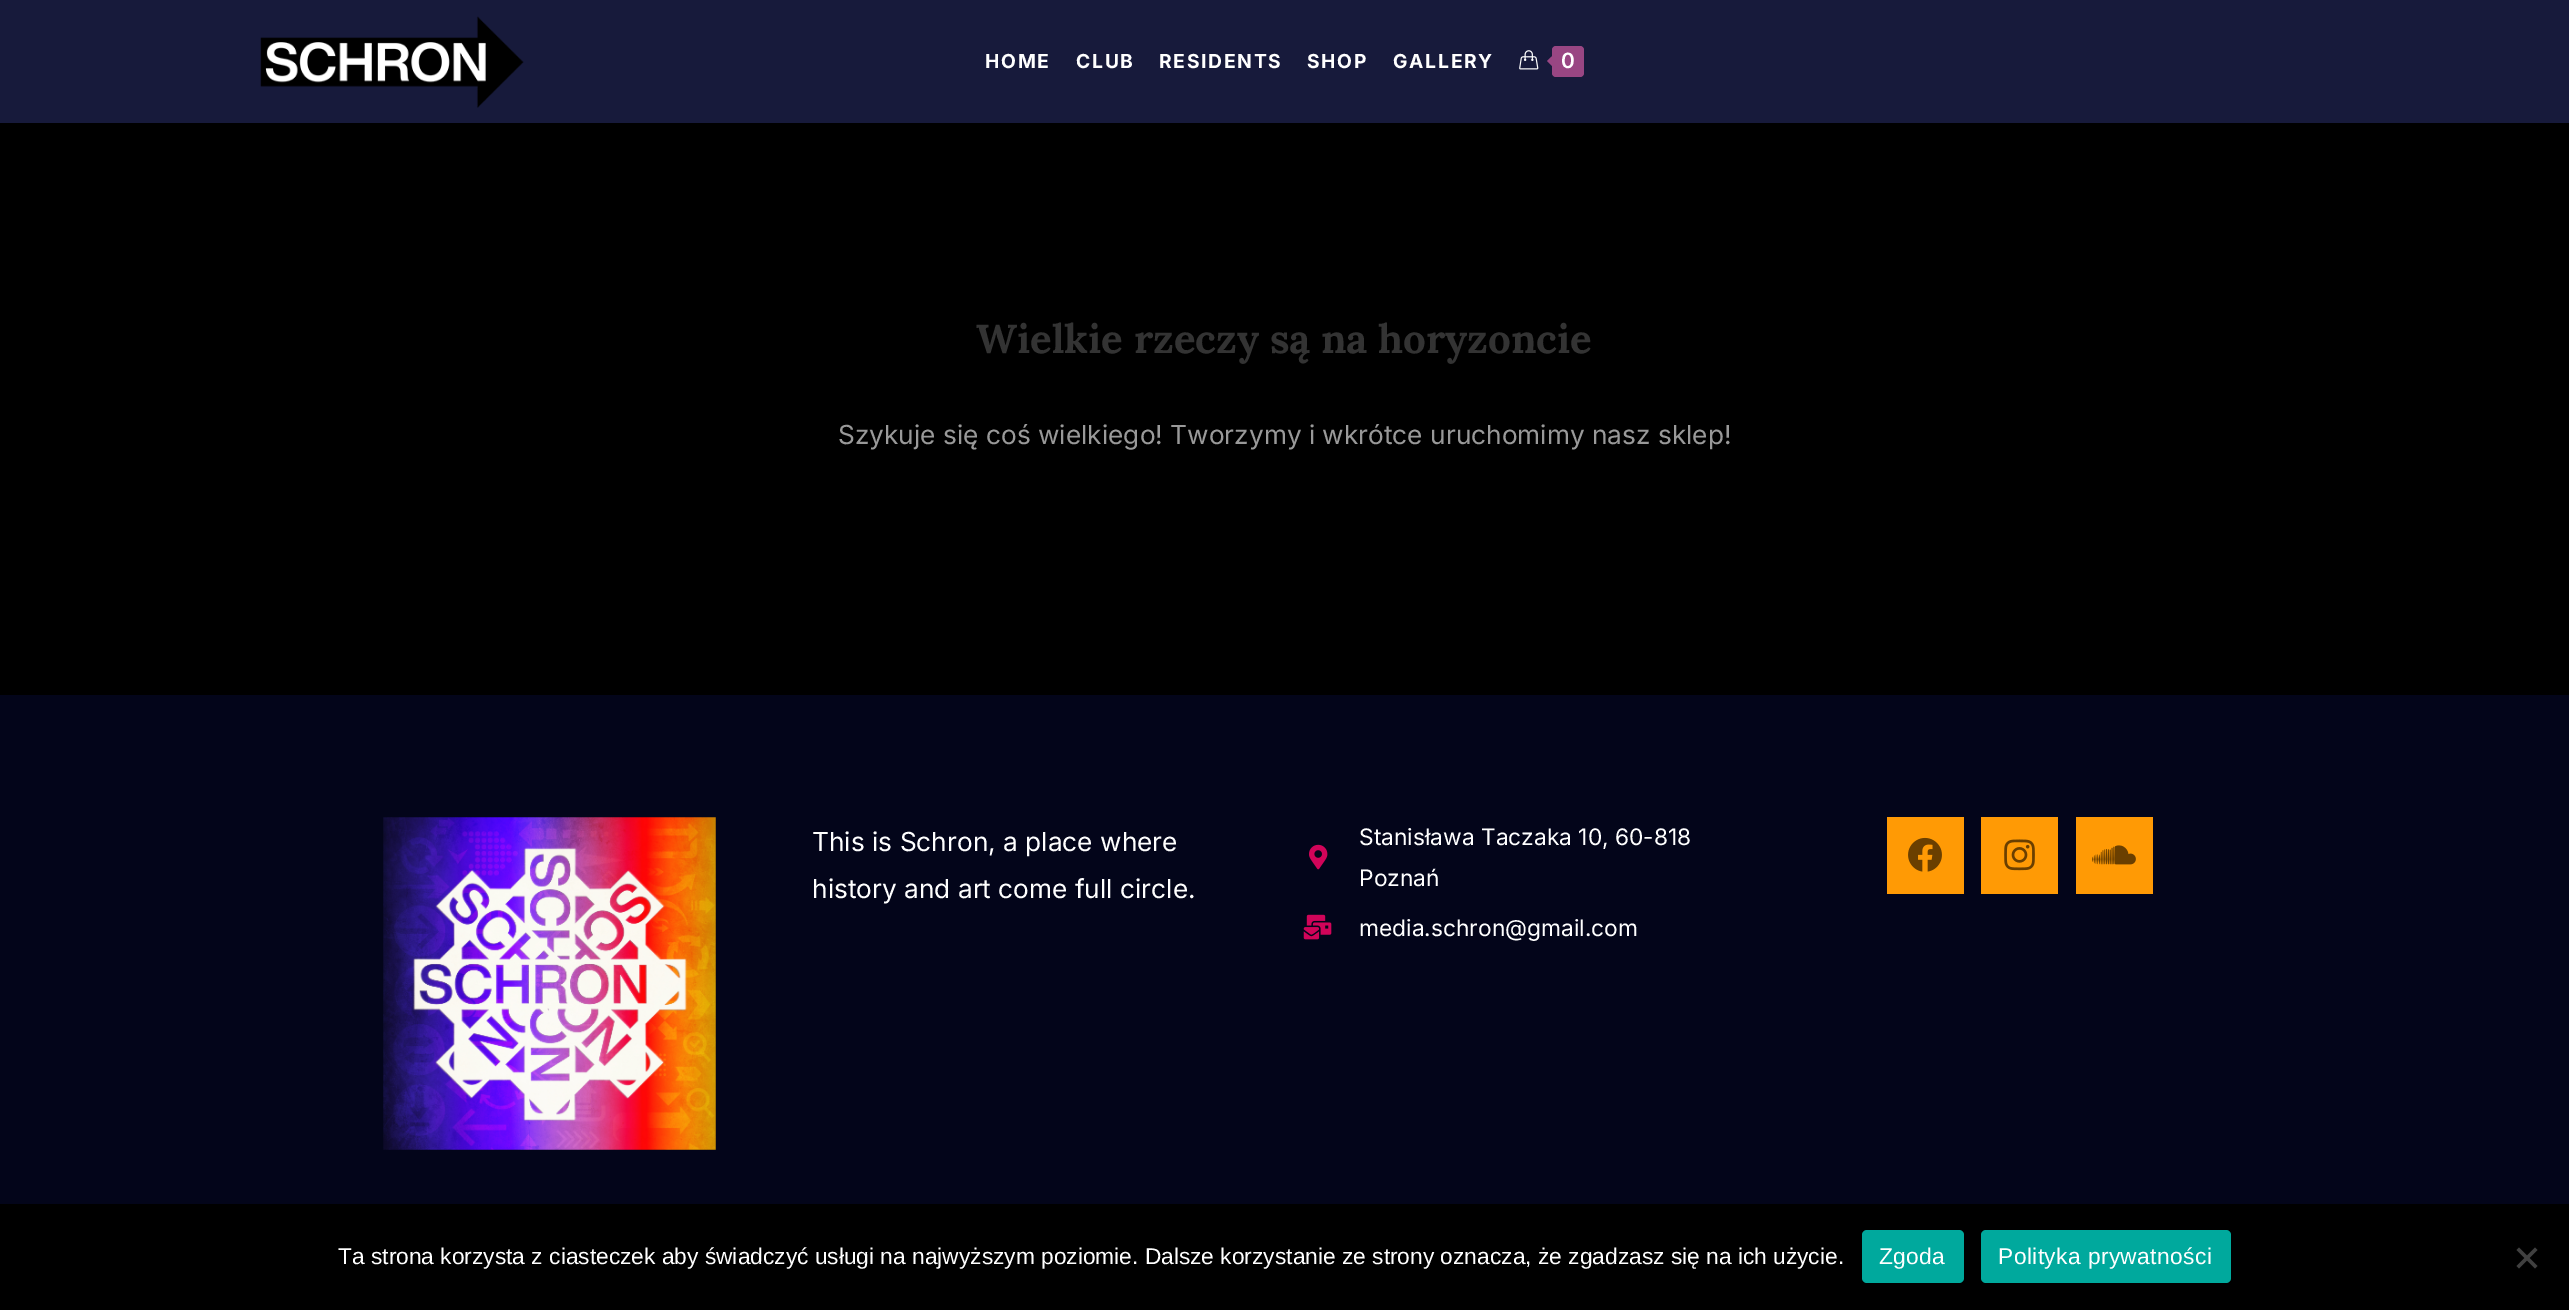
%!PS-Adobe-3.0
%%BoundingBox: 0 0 2569 1310
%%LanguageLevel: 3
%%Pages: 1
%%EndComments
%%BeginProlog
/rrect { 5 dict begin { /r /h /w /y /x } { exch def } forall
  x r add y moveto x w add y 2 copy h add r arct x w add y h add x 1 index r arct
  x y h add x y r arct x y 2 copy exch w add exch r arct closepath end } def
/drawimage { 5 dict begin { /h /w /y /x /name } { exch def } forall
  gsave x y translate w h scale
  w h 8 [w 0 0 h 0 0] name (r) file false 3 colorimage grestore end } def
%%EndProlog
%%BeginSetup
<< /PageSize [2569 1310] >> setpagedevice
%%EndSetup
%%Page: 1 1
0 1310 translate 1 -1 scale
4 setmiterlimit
0 setgray
0 0 2569 1310 rectfill
0.09 0.102 0.231 setrgbcolor
0 0 2569 123 rectfill
(images/1.raw) 260 16 264 92 drawimage
(images/2.raw) 1519 50 20 20 drawimage
0.6 0.275 0.514 setrgbcolor
1552 46 32 31 4 rrect fill
newpath 1556 52.5 moveto 1556 70 lineto 1547 61 lineto closepath fill
0.012 0.02 0.102 setrgbcolor
0 695 2569 509 rectfill
(images/3.raw) 383 817 333 333 drawimage
(images/4.raw) 1309 844 19 26 drawimage
(images/5.raw) 1303 914 29 26 drawimage
1 0.604 0.02 setrgbcolor
1887 817 77 77 rectfill
(images/6.raw) 1908 837 34 35 drawimage
1981 817 77 77 rectfill
(images/7.raw) 2004 839 31 32 drawimage
2076 817 77 77 rectfill
(images/8.raw) 2092 845 44 20 drawimage
0 0.663 0.616 setrgbcolor
1862 1230 102 53 5 rrect fill
1981 1230 250 53 5 rrect fill
0.251 setgray
newpath 2535 1247.5 moveto 2537.5 1250 lineto 2519 1268.5 lineto 2516.5 1266 lineto closepath fill
newpath 2516.5 1250 moveto 2519 1247.5 lineto 2537.5 1266 lineto 2535 1268.5 lineto closepath fill
/Inter-Bold [19.25 0 0 -19.25 0 0] selectfont
1 setgray
985 68 moveto 1.75 0 (HOME) ashow
1076 68 moveto 1.75 0 (CLUB) ashow
1159 68 moveto 1.75 0 (RESIDENTS) ashow
1307 68 moveto 1.75 0 (SHOP) ashow
1393 68 moveto 1.75 0 (GALLERY) ashow
/Inter-SemiBold [21 0 0 -21 0 0] selectfont
1561 68 moveto (0) show
/Lora-Bold [40.25 0 0 -40.25 0 0] selectfont
0.2 setgray
976 353 moveto (Wielkie rzeczy są na horyzoncie) show
/Inter-Regular [26.25 0 0 -26.25 0 0] selectfont
0.6 setgray
838 444 moveto (Szykuje się coś wielkiego! Tworzymy i wkrótce uruchomimy nasz sklep!) show
1 setgray
812 851 moveto (This is Schron, a place where) show
812 898 moveto (history and art come full circle.) show
/Inter-Regular [22.75 0 0 -22.75 0 0] selectfont
1359 845 moveto (Stanisława Taczaka 10, 60-818) show
1359 886 moveto (Poznań) show
1359 936 moveto (media.schron@gmail.com) show
/LiberationSans-Regular [22.75 0 0 -22.75 0 0] selectfont
338 1264 moveto (Ta strona korzysta z ciasteczek aby świadczyć usługi na najwyższym poziomie. Dalsze korzystanie ze strony oznacza, że zgadzasz się na ich użycie.) show
1879 1264 moveto 0.4 0 (Zgoda) ashow
1998 1264 moveto 0.4 0 (Polityka prywatności) ashow
showpage
%%EOF
